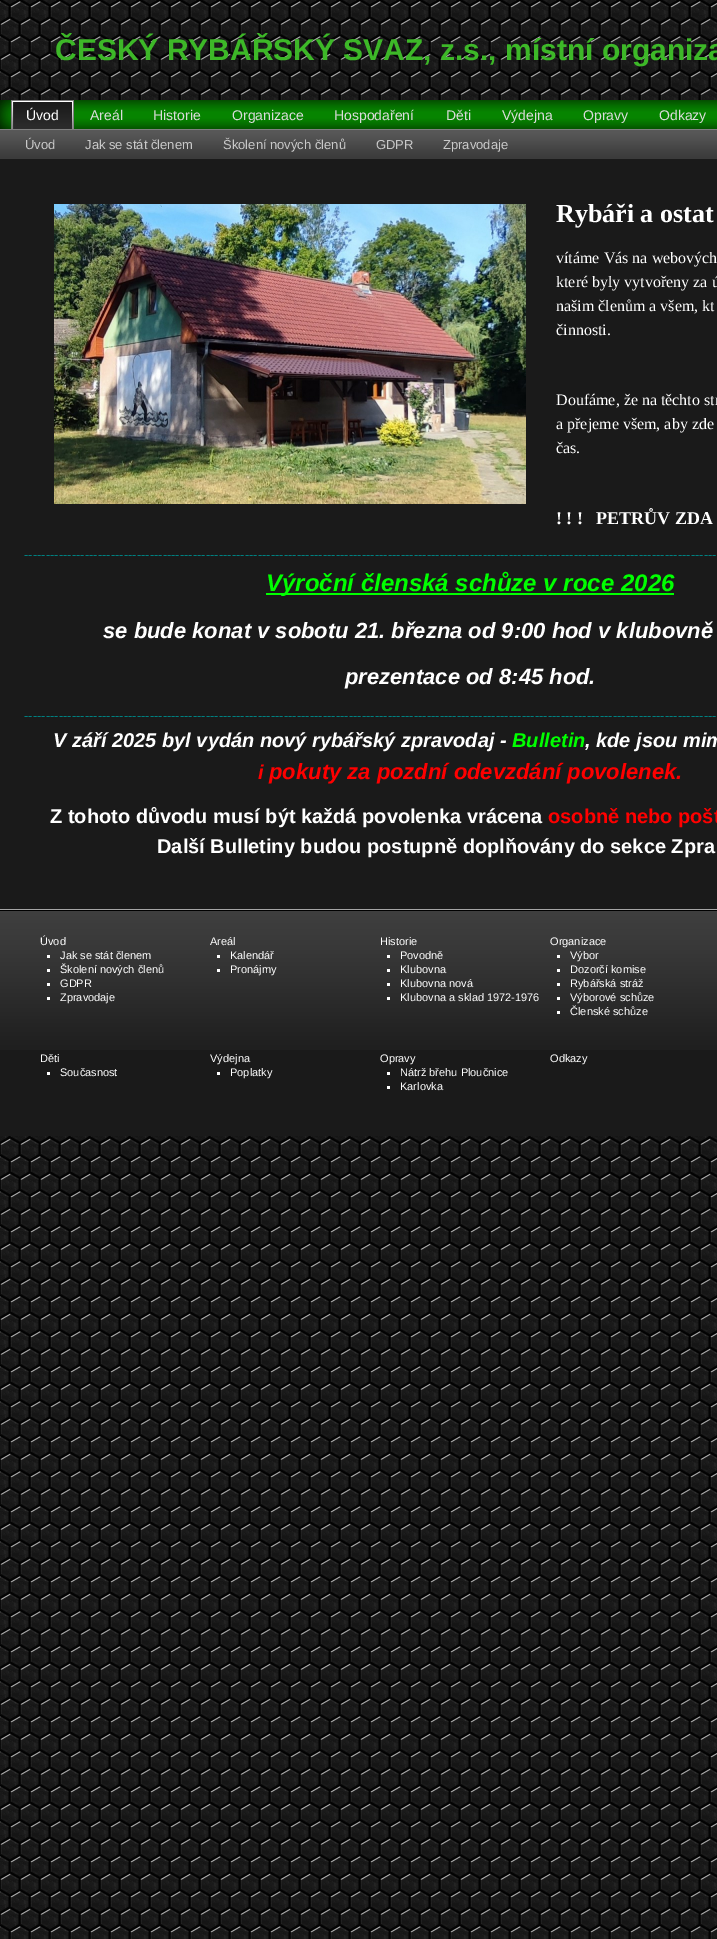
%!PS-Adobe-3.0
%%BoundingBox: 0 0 717 1939
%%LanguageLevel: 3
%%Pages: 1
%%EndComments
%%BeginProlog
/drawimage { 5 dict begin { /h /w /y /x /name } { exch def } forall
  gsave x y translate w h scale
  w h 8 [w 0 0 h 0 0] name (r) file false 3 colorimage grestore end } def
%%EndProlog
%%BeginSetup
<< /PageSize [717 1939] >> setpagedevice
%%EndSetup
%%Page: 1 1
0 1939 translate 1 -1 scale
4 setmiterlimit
1 setgray
0 0 717 1939 rectfill
(images/1.raw) 0 0 717 1939 drawimage
(images/2.raw) 0 100 717 30 drawimage
(images/3.raw) 11 100 63 29 drawimage
(images/4.raw) 72 101 2 28 drawimage
(images/5.raw) 0 130 717 30 drawimage
0.102 setgray
0 160 717 749 rectfill
(images/6.raw) 54 204 472 300 drawimage
0 1 0 setrgbcolor
266 593 408 2 rectfill
0.102 setgray
0 1050 717 86 rectfill
(images/7.raw) 0 909 717 141 drawimage
1 setgray
47 955 3 3 rectfill
47 969 3 3 rectfill
47 983 3 3 rectfill
47 997 3 3 rectfill
217 955 3 3 rectfill
217 969 3 3 rectfill
387 955 3 3 rectfill
387 969 3 3 rectfill
387 983 3 3 rectfill
387 997 3 3 rectfill
557 955 3 3 rectfill
557 969 3 3 rectfill
557 983 3 3 rectfill
557 997 3 3 rectfill
557 1011 3 3 rectfill
47 1072 3 3 rectfill
217 1072 3 3 rectfill
387 1072 3 3 rectfill
387 1086 3 3 rectfill
/LiberationSans-Bold [30 0 0 -30 0 0] selectfont
0.239 0.722 0.157 setrgbcolor
55 60 moveto (ČESKÝ RYBÁŘSKÝ SVAZ‚ z.s.‚ místní organiza) show
/LiberationSans-Regular [14 0 0 -14 0 0] selectfont
1 setgray
26 120 moveto (Úvod) show
0.863 setgray
90 120 moveto (Areál) show
153 120 moveto (Historie) show
232 120 moveto (Organizace) show
334 120 moveto (Hospodaření) show
446 120 moveto (Děti) show
502 120 moveto (Výdejna) show
583 120 moveto (Opravy) show
659 120 moveto (Odkazy) show
/LiberationSans-Regular [13 0 0 -13 0 0] selectfont
0.788 setgray
25 149 moveto (Úvod) show
85 149 moveto (Jak se stát členem) show
223 149 moveto (Školení nových členů) show
376 149 moveto (GDPR) show
443 149 moveto (Zpravodaje) show
/LiberationSerif-Bold [26 0 0 -26 0 0] selectfont
1 setgray
556 222 moveto (Rybáři a ostat) show
/LiberationSerif-Regular [16 0 0 -16 0 0] selectfont
556 263 moveto (vítáme Vás na webových) show
556 287 moveto (které byly vytvořeny za ú) show
556 311 moveto (našim členům a všem, kt) show
556 335 moveto (činnosti.) show
556 405 moveto (Doufáme, že na těchto str) show
556 429 moveto (a přejeme všem, aby zde) show
556 453 moveto (čas.) show
/LiberationSerif-Bold [18 0 0 -18 0 0] selectfont
556 524 moveto (! ! !   PETRŮV ZDA) show
/LiberationSans-Regular [13 0 0 -13 0 0] selectfont
0 0.502 0.502 setrgbcolor
24 559 moveto (----------------------------------------------------------------------------------------------------------------------------------------------------------------) show
/LiberationSans-BoldItalic [24 0 0 -24 0 0] selectfont
0 1 0 setrgbcolor
266 591 moveto (Výroční členská schůze v roce 2026) show
/LiberationSans-BoldItalic [22 0 0 -22 0 0] selectfont
1 setgray
103 638 moveto (se bude konat v sobotu 21. března od 9:00 hod v klubovně) show
345 684 moveto (prezentace od 8:45 hod.) show
/LiberationSans-Regular [13 0 0 -13 0 0] selectfont
0 0.502 0.502 setrgbcolor
24 720 moveto (----------------------------------------------------------------------------------------------------------------------------------------------------------------) show
/LiberationSans-BoldItalic [20 0 0 -20 0 0] selectfont
1 setgray
53 747 moveto (V září 2025 byl vydán nový rybářský zpravodaj -) show
0 1 0 setrgbcolor
512 747 moveto (Bulletin) show
1 setgray
585 747 moveto (, kde jsou mim) show
1 0 0 setrgbcolor
258 779 moveto (i) show
/LiberationSans-BoldItalic [22 0 0 -22 0 0] selectfont
269 779 moveto (pokuty za pozdní odevzdání povolenek.) show
/LiberationSans-Bold [20 0 0 -20 0 0] selectfont
1 setgray
50 823 moveto (Z tohoto důvodu musí být každá povolenka vrácena) show
1 0 0 setrgbcolor
548 823 moveto (osobně nebo pošt) show
1 setgray
157 853 moveto (Další Bulletiny budou postupně doplňovány do sekce Zpra) show
/LiberationSans-Regular [11 0 0 -11 0 0] selectfont
40 945 moveto (Úvod) show
60 959 moveto (Jak se stát členem) show
60 973 moveto (Školení nových členů) show
60 987 moveto (GDPR) show
60 1001 moveto (Zpravodaje) show
210 945 moveto (Areál) show
230 959 moveto (Kalendář) show
230 973 moveto (Pronájmy) show
380 945 moveto (Historie) show
400 959 moveto (Povodně) show
400 973 moveto (Klubovna) show
400 987 moveto (Klubovna nová) show
400 1001 moveto (Klubovna a sklad 1972-1976) show
550 945 moveto (Organizace) show
570 959 moveto (Výbor) show
570 973 moveto (Dozorčí komise) show
570 987 moveto (Rybářská stráž) show
570 1001 moveto (Výborové schůze) show
570 1015 moveto (Členské schůze) show
40 1062 moveto (Děti) show
60 1076 moveto (Současnost) show
210 1062 moveto (Výdejna) show
230 1076 moveto (Poplatky) show
380 1062 moveto (Opravy) show
400 1076 moveto (Nátrž břehu Ploučnice) show
400 1090 moveto (Karlovka) show
550 1062 moveto (Odkazy) show
showpage
%%EOF
